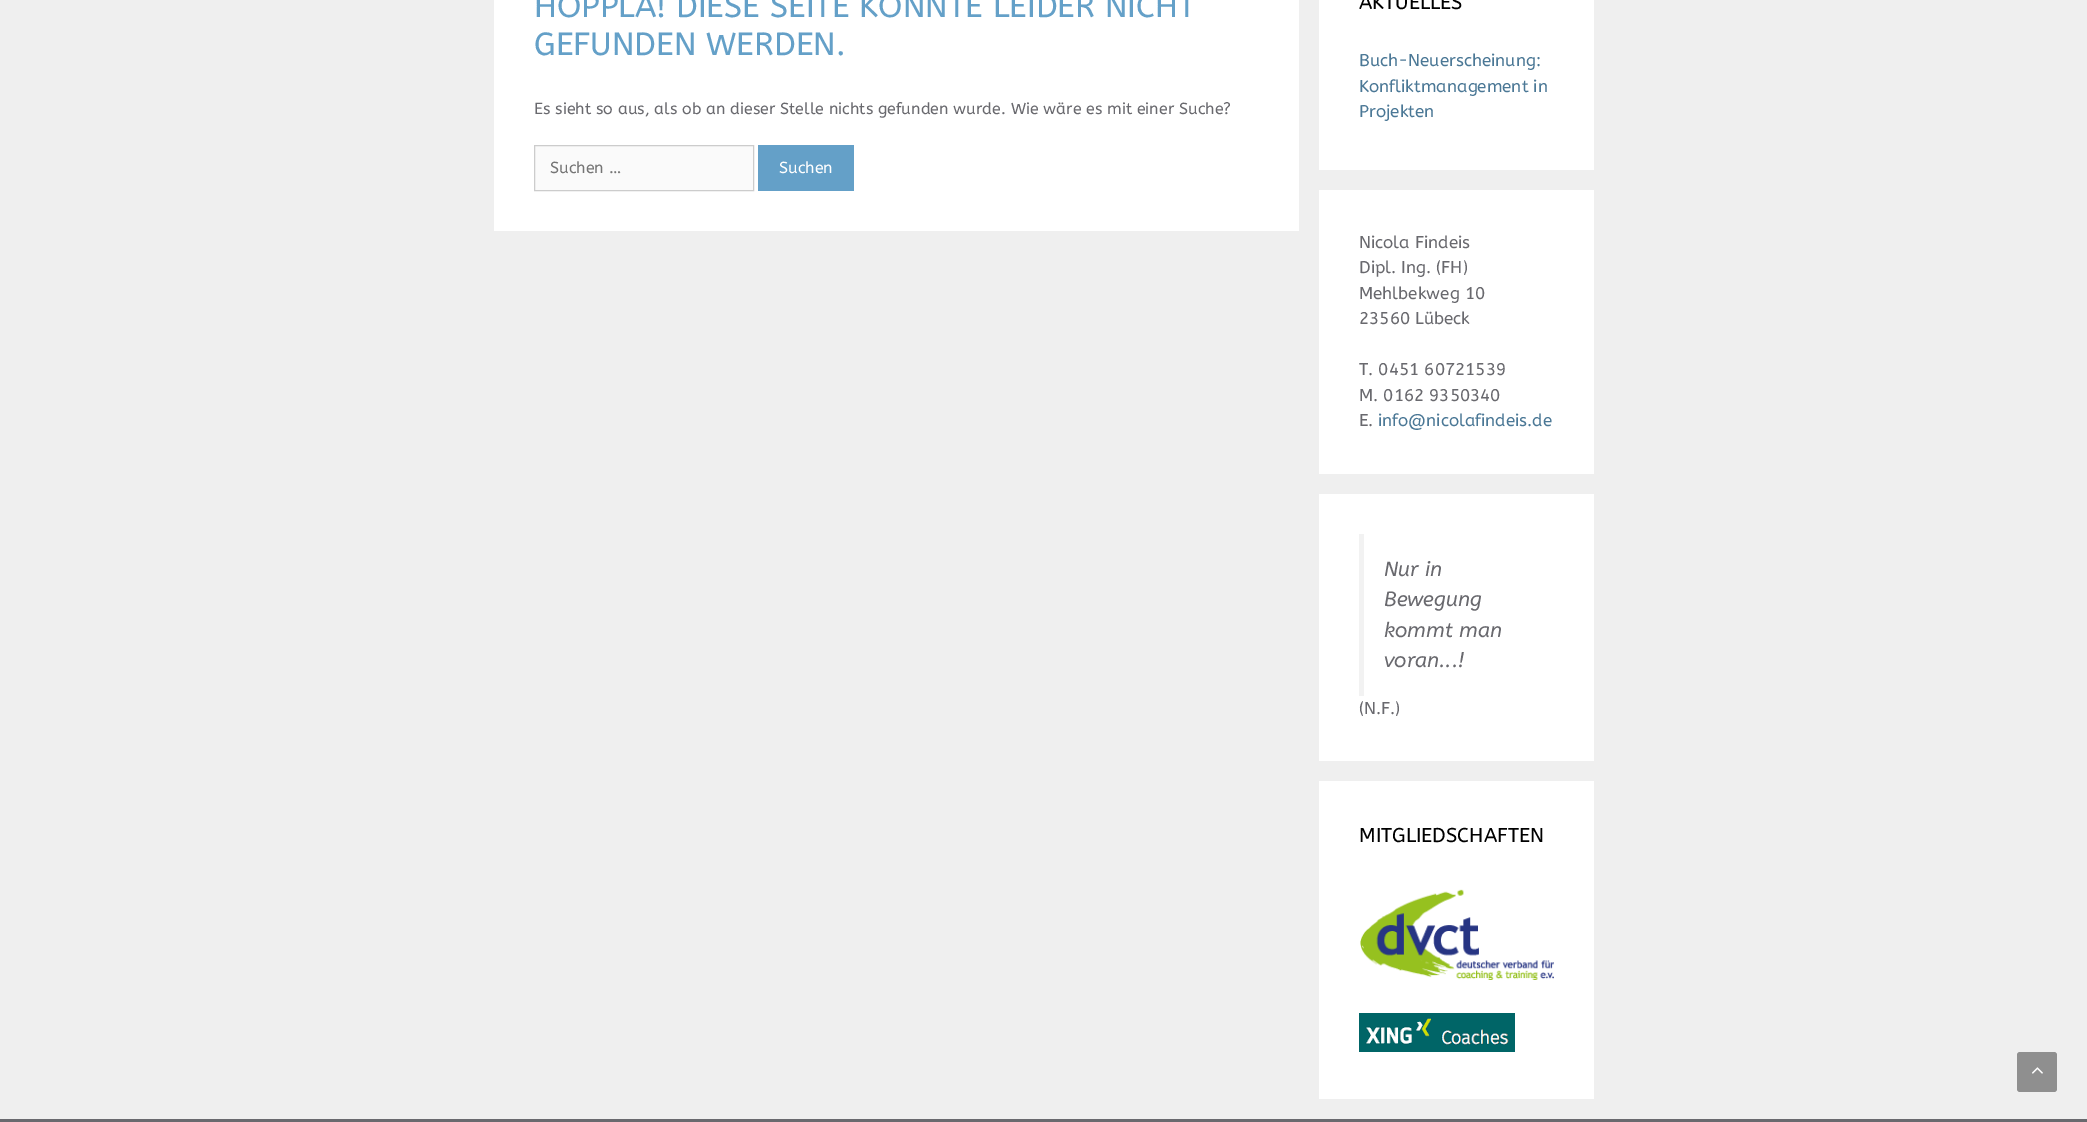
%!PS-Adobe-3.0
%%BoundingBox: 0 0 2087 1122
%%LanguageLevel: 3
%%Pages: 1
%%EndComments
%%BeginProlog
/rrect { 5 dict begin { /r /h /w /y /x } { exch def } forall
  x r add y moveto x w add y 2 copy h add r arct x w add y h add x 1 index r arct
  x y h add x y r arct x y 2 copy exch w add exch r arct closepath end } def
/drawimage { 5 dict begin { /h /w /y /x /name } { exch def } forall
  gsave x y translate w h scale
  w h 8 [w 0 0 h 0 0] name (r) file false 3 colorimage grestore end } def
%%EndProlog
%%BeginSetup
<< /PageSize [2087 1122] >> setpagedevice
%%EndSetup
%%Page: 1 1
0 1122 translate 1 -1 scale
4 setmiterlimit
0.937 setgray
0 0 2087 1122 rectfill
1 setgray
494 0 805 231 rectfill
0.98 setgray
newpath 534.5 145.5 moveto 753.5 145.5 lineto 753.5 190.5 lineto 534.5 190.5 lineto closepath gsave fill grestore
0.8 setgray
stroke
0.392 0.627 0.784 setrgbcolor
758 145 96 46 rectfill
1 setgray
1319 0 275 170 rectfill
1319 190 275 284 rectfill
1319 494 275 267 rectfill
0.949 setgray
1359 534 5 162 rectfill
1 setgray
1319 781 275 318 rectfill
(images/1.raw) 1360 889 194 91 drawimage
(images/2.raw) 1359 1013 156 39 drawimage
0.561 setgray
2017 1052 40 40 3 rrect fill
(images/3.raw) 2032 1067 11 7 drawimage
0.412 0.412 0.431 setrgbcolor
0 1119 2087 3 rectfill
/ABeeZee-Regular [32 0 0 -32 0 0] selectfont
0.392 0.627 0.784 setrgbcolor
534 17 moveto (HOPPLA! DIESE SEITE KONNTE LEIDER NICHT) show
534 55 moveto (GEFUNDEN WERDEN.) show
/ABeeZee-Regular [16 0 0 -16 0 0] selectfont
0.412 0.412 0.431 setrgbcolor
534 114 moveto (Es sieht so aus, als ob an dieser Stelle nichts gefunden wurde. Wie wäre es mit einer Suche?) show
0.459 setgray
550 173 moveto (Suchen …) show
1 setgray
779 173 moveto (Suchen) show
/ABeeZee-Regular [20 0 0 -20 0 0] selectfont
0 setgray
1359 9 moveto (AKTUELLES) show
/ABeeZee-Regular [17 0 0 -17 0 0] selectfont
0.294 0.471 0.588 setrgbcolor
1359 66 moveto (Buch-Neuerscheinung:) show
1359 92 moveto (Konfliktmanagement in) show
1359 117 moveto (Projekten) show
0.412 0.412 0.431 setrgbcolor
1359 248 moveto (Nicola Findeis) show
1359 273 moveto (Dipl. Ing. \(FH\)) show
1359 299 moveto (Mehlbekweg 10) show
1359 324 moveto (23560 Lübeck) show
1359 375 moveto (T. 0451 60721539) show
1359 401 moveto (M. 0162 9350340) show
1359 426 moveto (E.) show
0.294 0.471 0.588 setrgbcolor
1378 426 moveto (info@nicolafindeis.de) show
/ABeeZee-Italic [20.5 0 0 -20.5 0 0] selectfont
0.412 0.412 0.431 setrgbcolor
1384 576 moveto (Nur in) show
1384 606 moveto (Bewegung) show
1384 637 moveto (kommt man) show
1384 667 moveto (voran...!) show
/ABeeZee-Regular [17 0 0 -17 0 0] selectfont
1359 714 moveto (\(N.F.\)) show
/ABeeZee-Regular [20 0 0 -20 0 0] selectfont
0 setgray
1359 842 moveto (MITGLIEDSCHAFTEN) show
showpage
%%EOF
